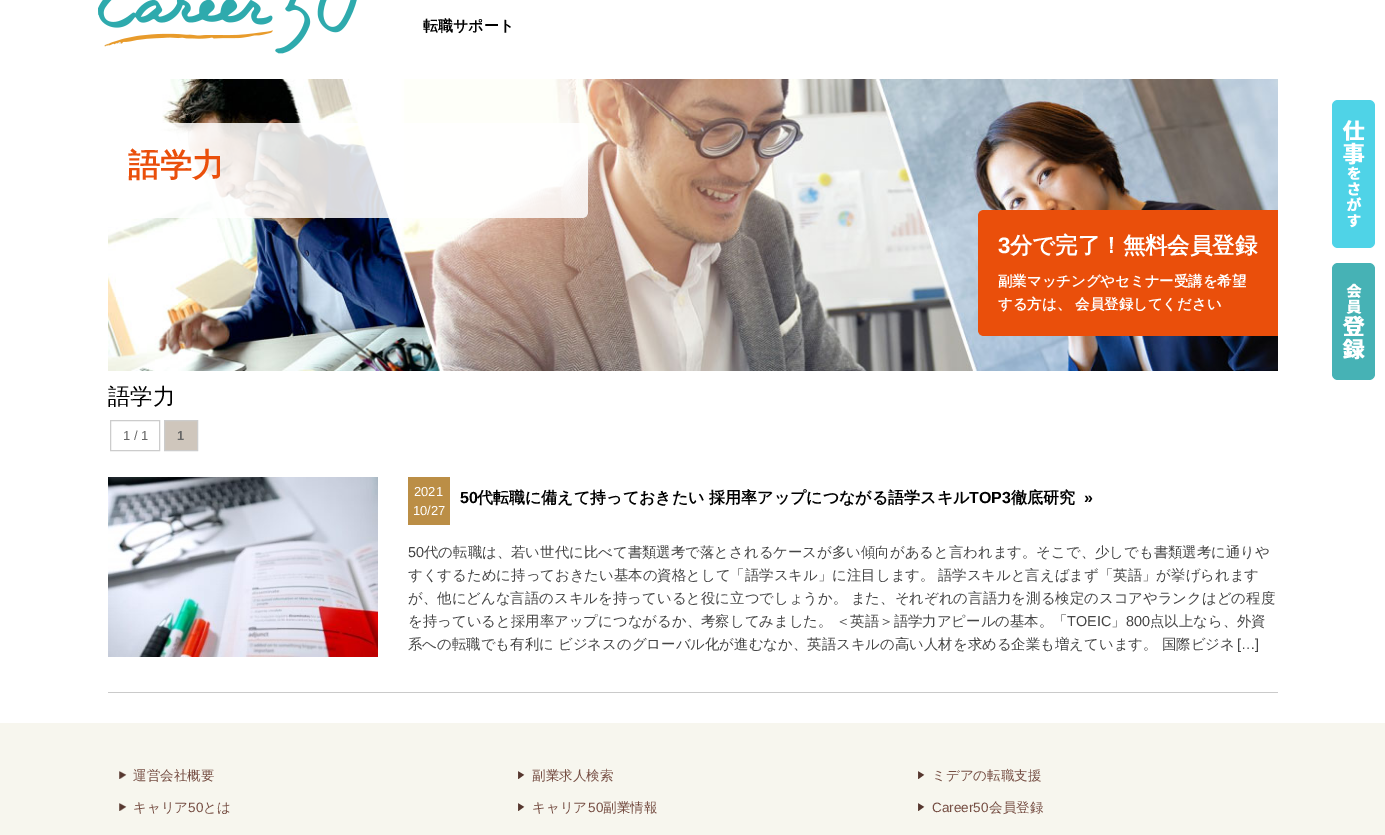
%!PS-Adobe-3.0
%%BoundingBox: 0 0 1385 835
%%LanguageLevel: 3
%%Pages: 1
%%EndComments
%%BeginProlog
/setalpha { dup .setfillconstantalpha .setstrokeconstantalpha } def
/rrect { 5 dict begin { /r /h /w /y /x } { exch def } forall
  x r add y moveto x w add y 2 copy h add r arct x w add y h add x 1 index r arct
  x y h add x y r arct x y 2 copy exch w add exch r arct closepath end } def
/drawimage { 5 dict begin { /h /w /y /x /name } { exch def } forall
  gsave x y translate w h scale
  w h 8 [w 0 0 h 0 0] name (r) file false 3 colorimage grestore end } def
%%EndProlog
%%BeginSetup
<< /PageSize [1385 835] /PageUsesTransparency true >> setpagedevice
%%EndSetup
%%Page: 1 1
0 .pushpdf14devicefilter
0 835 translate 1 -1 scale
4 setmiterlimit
1 setgray
0 0 1385 835 rectfill
(images/1.raw) 98 0 259 54 drawimage
(images/2.raw) 108 79 1170 292 drawimage
0.85 setalpha
newpath 108 123 moveto 582 123 lineto 585.5 123 588 125.5 588 129 curveto 588 212 lineto 588 215.5 585.5 218 582 218 curveto 108 218 lineto closepath fill
1 setalpha
0.918 0.31 0.043 setrgbcolor
newpath 984 210 moveto 1278 210 lineto 1278 336 lineto 984 336 lineto 980.5 336 978 333.5 978 330 curveto 978 216 lineto 978 212.5 980.5 210 984 210 curveto closepath fill
0.31 0.827 0.906 setrgbcolor
1332 100 43 148 6 rrect fill
(images/3.raw) 1342 120 23 108 drawimage
0.275 0.698 0.71 setrgbcolor
1332 263 43 117 6 rrect fill
(images/4.raw) 1342 283 23 77 drawimage
0.8 setgray
110.5 420.5 49 30 rectstroke
0.812 0.776 0.737 setrgbcolor
newpath 164.5 420.5 moveto 197.5 420.5 lineto 197.5 450.5 lineto 164.5 450.5 lineto closepath gsave fill grestore
0.8 setgray
stroke
(images/5.raw) 108 477 270 180 drawimage
0.733 0.557 0.275 setrgbcolor
408 477 42 48 rectfill
0.792 setgray
108 692 1170 1 rectfill
0.969 0.965 0.933 setrgbcolor
0 723 1385 112 rectfill
(images/6.raw) 119 771 8 8 drawimage
(images/6.raw) 119 803 8 8 drawimage
(images/7.raw) 518 771 7 8 drawimage
(images/7.raw) 518 803 7 8 drawimage
(images/7.raw) 918 771 7 8 drawimage
(images/7.raw) 918 803 7 8 drawimage
/WenQuanYiZenHei-Bold [15 0 0 -15 0 0] selectfont
0 setgray
423 31 moveto (転職サポート) show
/WenQuanYiZenHei-Bold [32 0 0 -32 0 0] selectfont
0.918 0.31 0.043 setrgbcolor
128 176 moveto (語学力) show
/LiberationSans-Bold [22.4 0 0 -22.4 0 0] selectfont
1 setgray
998 253 moveto (3) show
/WenQuanYiZenHei-Bold [22.4 0 0 -22.4 0 0] selectfont
1010 253 moveto (分で完了！無料会員登録) show
/WenQuanYiZenHei-Bold [14.4 0 0 -14.4 0 0] selectfont
998 286 moveto (副業マッチングやセミナー受講を希望) show
998 309 moveto (する方は、 会員登録してください) show
/WenQuanYiZenHei-Medium [22.4 0 0 -22.4 0 0] selectfont
0 setgray
108 404 moveto (語学力) show
/LiberationSans-Regular [13 0 0 -13 0 0] selectfont
0.4 setgray
123 440 moveto (1 / 1) show
/LiberationSans-Bold [13 0 0 -13 0 0] selectfont
177 440 moveto (1) show
/LiberationSans-Regular [13 0 0 -13 0 0] selectfont
1 setgray
414 496 moveto (2021) show
413 515 moveto (10/27) show
/LiberationSans-Bold [16 0 0 -16 0 0] selectfont
0 setgray
460 503 moveto (50) show
/WenQuanYiZenHei-Bold [16 0 0 -16 0 0] selectfont
477 503 moveto (代転職に備えて持っておきたい 採用率アップにつながる語学スキル) show
/LiberationSans-Bold [16 0 0 -16 0 0] selectfont
969 503 moveto (TOP3) show
/WenQuanYiZenHei-Bold [16 0 0 -16 0 0] selectfont
1011 503 moveto (徹底研究) show
/LiberationSans-Bold [16 0 0 -16 0 0] selectfont
1084 503 moveto (») show
/LiberationSans-Regular [14.4 0 0 -14.4 0 0] selectfont
0.267 setgray
408 557 moveto (50) show
/WenQuanYiZenHei-Medium [14.4 0 0 -14.4 0 0] selectfont
424 557 moveto (代の転職は、若い世代に比べて書類選考で落とされるケースが多い傾向があると言われます。そこで、少しでも書類選考に通りや) show
408 580 moveto -1 0 32 (すくするために持っておきたい基本の資格として「語学スキル」に注目します。 語学スキルと言えばまず「英語」が挙げられます) widthshow
408 603 moveto -1 0 32 (が、他にどんな言語のスキルを持っていると役に立つでしょうか。 また、それぞれの言語力を測る検定のスコアやランクはどの程度) widthshow
408 626 moveto -1 0 32 (を持っていると採用率アップにつながるか、考察してみました。 ＜英語＞語学力アピールの基本。「) widthshow
/LiberationSans-Regular [14.4 0 0 -14.4 0 0] selectfont
1067 626 moveto (TOEIC) show
/WenQuanYiZenHei-Medium [14.4 0 0 -14.4 0 0] selectfont
1111 626 moveto (」) show
/LiberationSans-Regular [14.4 0 0 -14.4 0 0] selectfont
1126 626 moveto (800) show
/WenQuanYiZenHei-Medium [14.4 0 0 -14.4 0 0] selectfont
1150 626 moveto (点以上なら、外資) show
408 649 moveto (系への転職でも有利に ビジネスのグローバル化が進むなか、英語スキルの高い人材を求める企業も増えています。 国際ビジネ) show
/LiberationSans-Regular [14.4 0 0 -14.4 0 0] selectfont
1237 649 moveto ([…]) show
/WenQuanYiZenHei-Medium [13.5 0 0 -13.5 0 0] selectfont
0.459 0.302 0.259 setrgbcolor
133 780 moveto (運営会社概要) show
133 812 moveto (キャリア) show
/LiberationSans-Regular [13.5 0 0 -13.5 0 0] selectfont
188 812 moveto (50) show
/WenQuanYiZenHei-Medium [13.5 0 0 -13.5 0 0] selectfont
203 812 moveto (とは) show
532 780 moveto (副業求人検索) show
532 812 moveto (キャリア) show
/LiberationSans-Regular [13.5 0 0 -13.5 0 0] selectfont
588 812 moveto (50) show
/WenQuanYiZenHei-Medium [13.5 0 0 -13.5 0 0] selectfont
603 812 moveto (副業情報) show
932 780 moveto (ミデアの転職支援) show
/LiberationSans-Regular [13.5 0 0 -13.5 0 0] selectfont
932 812 moveto (Career50) show
/WenQuanYiZenHei-Medium [13.5 0 0 -13.5 0 0] selectfont
989 812 moveto (会員登録) show
.poppdf14devicefilter showpage
%%EOF
